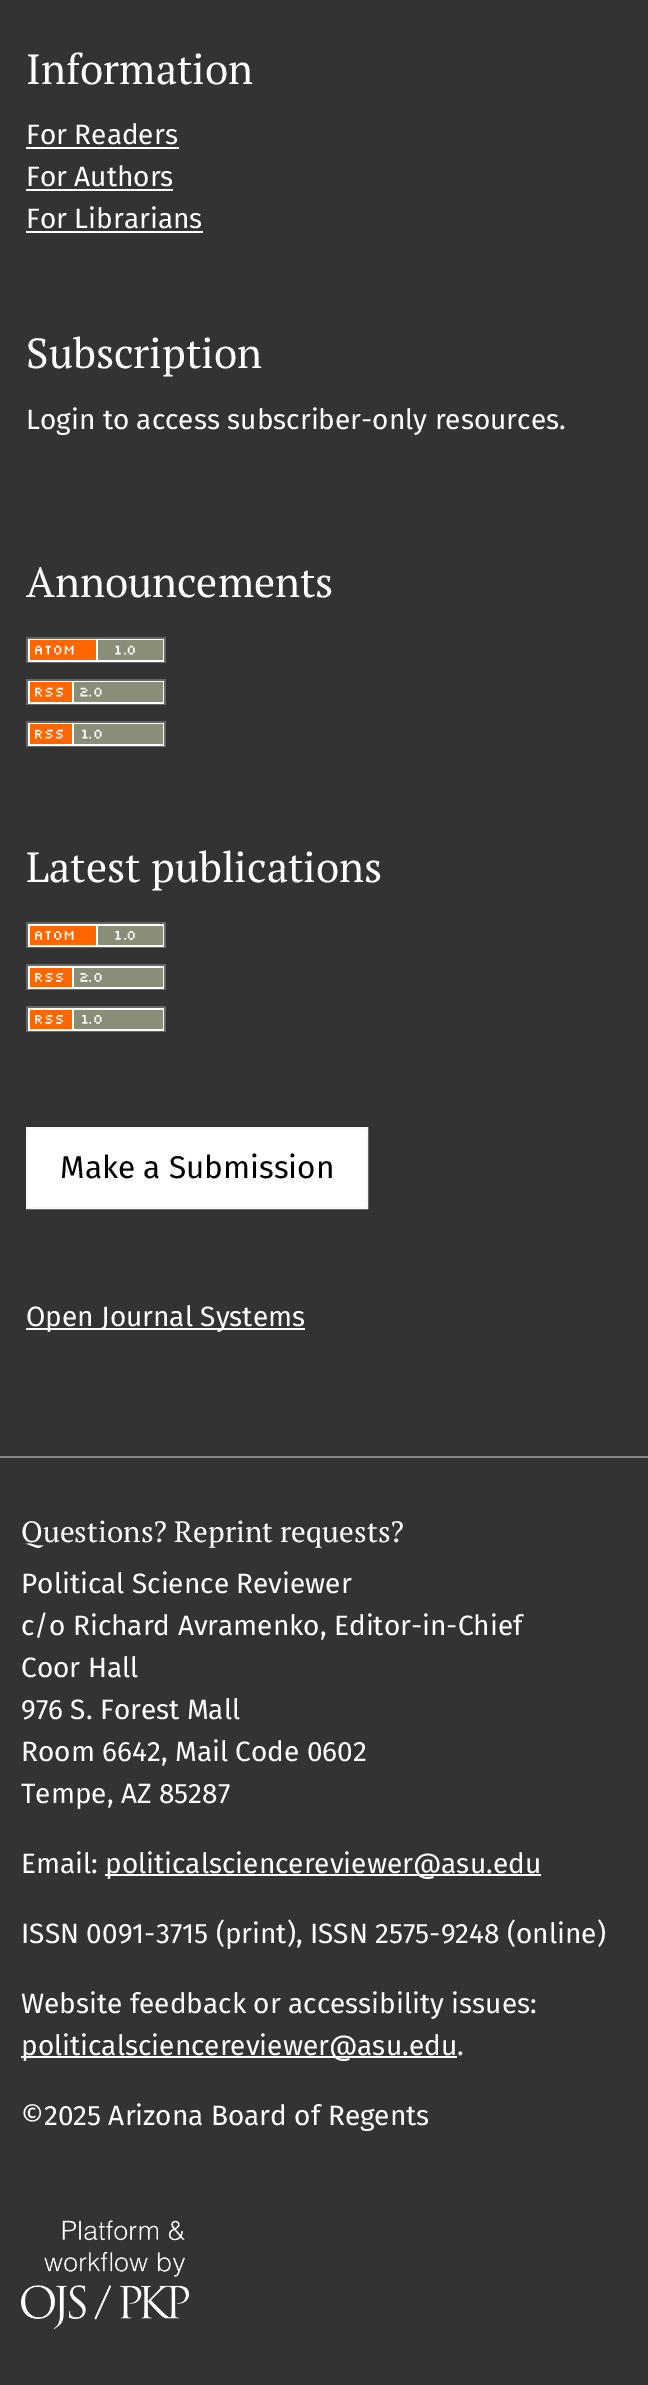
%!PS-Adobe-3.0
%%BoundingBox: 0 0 648 2385
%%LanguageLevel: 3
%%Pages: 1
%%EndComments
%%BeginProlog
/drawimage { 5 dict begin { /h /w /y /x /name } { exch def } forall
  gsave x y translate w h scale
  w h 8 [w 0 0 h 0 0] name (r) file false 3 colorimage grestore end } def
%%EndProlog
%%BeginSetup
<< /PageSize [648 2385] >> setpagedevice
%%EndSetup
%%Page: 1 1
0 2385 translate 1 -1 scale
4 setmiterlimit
0.2 setgray
0 0 648 2385 rectfill
0.522 setgray
0 1456 648 2 rectfill
1 setgray
26 147 153 2 rectfill
26 189 147 2 rectfill
26 231 177 2 rectfill
(images/1.raw) 26 637 140 26 drawimage
(images/2.raw) 26 679 140 26 drawimage
(images/3.raw) 26 721 140 26 drawimage
(images/4.raw) 26 922 140 26 drawimage
(images/5.raw) 26 964 140 26 drawimage
(images/6.raw) 26 1006 140 26 drawimage
newpath 27 1128 moveto 367 1128 lineto 367 1208 lineto 27 1208 lineto closepath gsave fill grestore
0.969 setgray
2 setlinewidth
stroke
1 setgray
26 1328 279 2 rectfill
105 1874 436 2 rectfill
21 2056 436 2 rectfill
(images/7.raw) 21 2220 168 109 drawimage
/PTSerif-Regular [42 0 0 -42 0 0] selectfont
26 84 moveto (Information) show
/FiraSans-Regular [28 0 0 -28 0 0] selectfont
26 144 moveto (For Readers) show
26 186 moveto (For Authors) show
26 228 moveto (For Librarians) show
/PTSerif-Regular [42 0 0 -42 0 0] selectfont
26 368 moveto (Subscription) show
/FiraSans-Regular [28 0 0 -28 0 0] selectfont
26 429 moveto (Login to access subscriber-only resources.) show
/PTSerif-Regular [42 0 0 -42 0 0] selectfont
26 597 moveto (Announcements) show
26 882 moveto (Latest publications) show
/FiraSans-Regular [31.5 0 0 -31.5 0 0] selectfont
0 setgray
60 1178 moveto (Make a Submission) show
/FiraSans-Regular [28 0 0 -28 0 0] selectfont
1 setgray
26 1326 moveto (Open Journal Systems) show
/PTSerif-Regular [29.4 0 0 -29.4 0 0] selectfont
21 1542 moveto (Questions? Reprint requests?) show
/FiraSans-Regular [28 0 0 -28 0 0] selectfont
21 1593 moveto (Political Science Reviewer) show
21 1635 moveto (c/o Richard Avramenko, Editor-in-Chief) show
21 1677 moveto (Coor Hall) show
21 1719 moveto (976 S. Forest Mall) show
21 1761 moveto (Room 6642, Mail Code 0602) show
21 1803 moveto (Tempe, AZ 85287) show
21 1873 moveto (Email:) show
105 1873 moveto (politicalsciencereviewer@asu.edu) show
21 1943 moveto (ISSN 0091-3715 \(print\), ISSN 2575-9248 \(online\)) show
21 2013 moveto (Website feedback or accessibility issues:) show
21 2055 moveto (politicalsciencereviewer@asu.edu.) show
21 2125 moveto (©2025 Arizona Board of Regents) show
showpage
%%EOF
